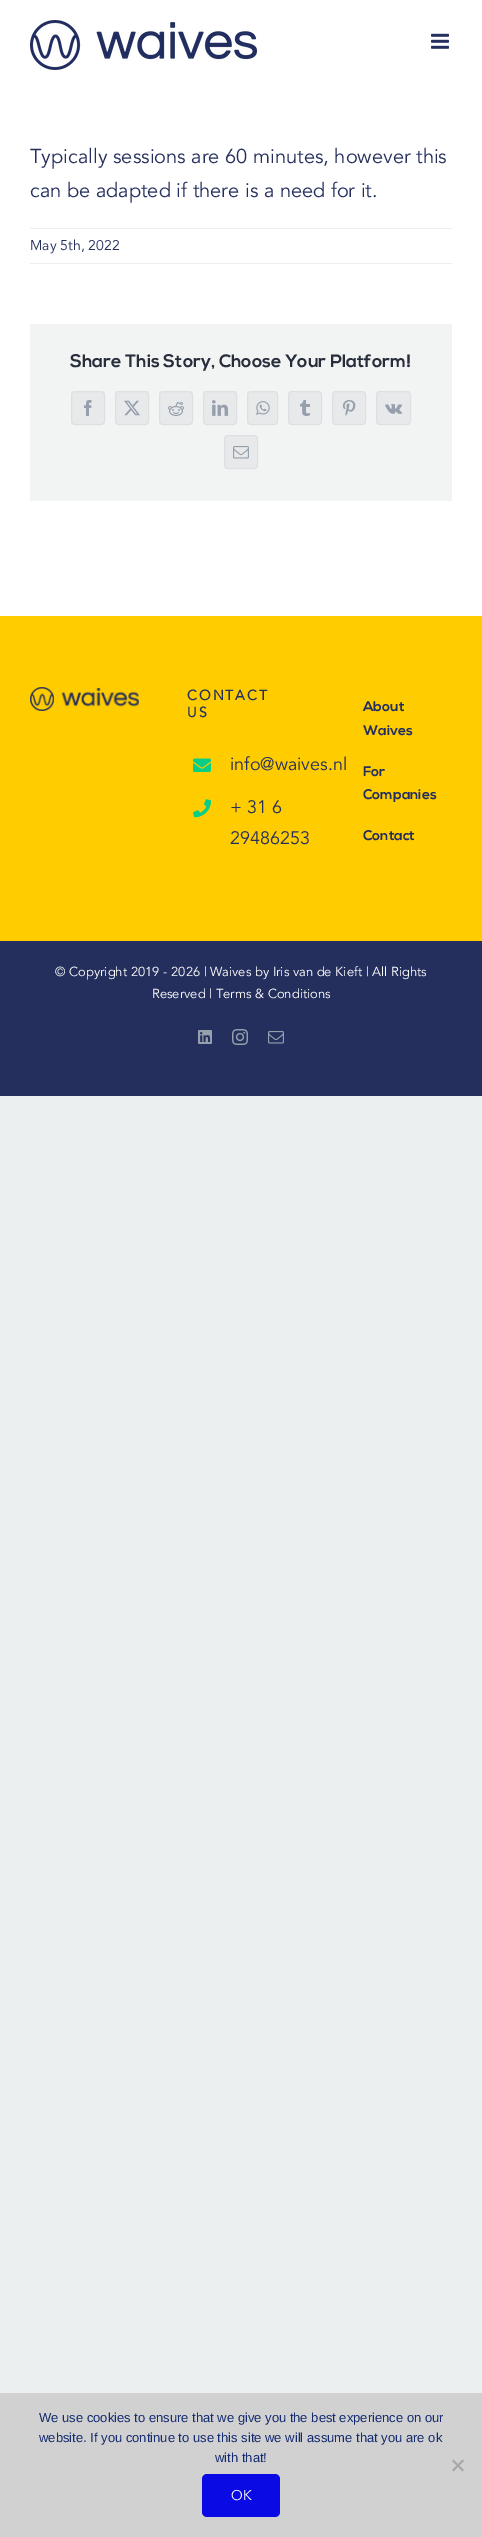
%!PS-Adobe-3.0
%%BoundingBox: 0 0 482 2537
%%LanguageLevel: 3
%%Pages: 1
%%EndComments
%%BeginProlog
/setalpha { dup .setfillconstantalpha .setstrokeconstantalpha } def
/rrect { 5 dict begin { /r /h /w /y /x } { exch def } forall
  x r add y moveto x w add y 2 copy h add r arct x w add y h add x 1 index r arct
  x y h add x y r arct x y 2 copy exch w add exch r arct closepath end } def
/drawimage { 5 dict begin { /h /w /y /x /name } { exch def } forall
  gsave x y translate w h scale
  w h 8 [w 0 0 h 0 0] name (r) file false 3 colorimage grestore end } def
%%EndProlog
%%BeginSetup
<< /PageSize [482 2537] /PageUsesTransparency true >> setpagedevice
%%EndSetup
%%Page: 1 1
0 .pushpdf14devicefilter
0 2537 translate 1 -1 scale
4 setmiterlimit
0.925 0.937 0.937 setrgbcolor
0 0 482 2537 rectfill
1 setgray
0 0 482 616 rectfill
(images/1.raw) 30 20 227 50 drawimage
(images/2.raw) 431 33 18 16 drawimage
0.925 0.937 0.937 setrgbcolor
30 228 422 1 rectfill
30 263 422 1 rectfill
0.949 0.953 0.953 setrgbcolor
30 324 422 177 rectfill
0.906 0.914 0.918 setrgbcolor
71 391 34 34 4 rrect fill
0.12 setalpha
0.588 0.624 0.675 setrgbcolor
71.5 391.5 33 33 3.5 rrect stroke
1 setalpha
(images/3.raw) 84 400 8 16 drawimage
0.906 0.914 0.918 setrgbcolor
115 391 34 34 4 rrect fill
0.12 setalpha
0.588 0.624 0.675 setrgbcolor
115.5 391.5 33 33 3.5 rrect stroke
1 setalpha
(images/4.raw) 124 400 16 16 drawimage
0.906 0.914 0.918 setrgbcolor
159 391 34 34 4 rrect fill
0.12 setalpha
0.588 0.624 0.675 setrgbcolor
159.5 391.5 33 33 3.5 rrect stroke
1 setalpha
(images/5.raw) 168 402 16 14 drawimage
0.906 0.914 0.918 setrgbcolor
203 391 34 34 4 rrect fill
0.12 setalpha
0.588 0.624 0.675 setrgbcolor
203.5 391.5 33 33 3.5 rrect stroke
1 setalpha
(images/6.raw) 212 400 16 16 drawimage
0.906 0.914 0.918 setrgbcolor
247 391 31 34 4 rrect fill
0.12 setalpha
0.588 0.624 0.675 setrgbcolor
247.5 391.5 30 33 3.5 rrect stroke
1 setalpha
(images/7.raw) 256 401 14 14 drawimage
0.906 0.914 0.918 setrgbcolor
288 391 34 34 4 rrect fill
0.12 setalpha
0.588 0.624 0.675 setrgbcolor
288.5 391.5 33 33 3.5 rrect stroke
1 setalpha
(images/8.raw) 300 400 10 16 drawimage
0.906 0.914 0.918 setrgbcolor
332 391 34 34 4 rrect fill
0.12 setalpha
0.588 0.624 0.675 setrgbcolor
332.5 391.5 33 33 3.5 rrect stroke
1 setalpha
(images/9.raw) 342 400 14 16 drawimage
0.906 0.914 0.918 setrgbcolor
376 391 35 34 4 rrect fill
0.12 setalpha
0.588 0.624 0.675 setrgbcolor
376.5 391.5 34 33 3.5 rrect stroke
1 setalpha
(images/10.raw) 385 404 18 10 drawimage
0.906 0.914 0.918 setrgbcolor
224 435 34 34 4 rrect fill
0.12 setalpha
0.588 0.624 0.675 setrgbcolor
224.5 435.5 33 33 3.5 rrect stroke
1 setalpha
(images/11.raw) 233 446 16 13 drawimage
1 0.8 0 setrgbcolor
0 616 482 325 rectfill
(images/12.raw) 30 687 109 24 drawimage
(images/13.raw) 193 758 18 14 drawimage
(images/14.raw) 193 799 18 19 drawimage
0.141 0.184 0.365 setrgbcolor
0 941 482 155 rectfill
(images/15.raw) 198 1030 14 14 drawimage
(images/16.raw) 232 1029 16 16 drawimage
(images/17.raw) 268 1031 16 13 drawimage
0.82 setgray
0 2393 482 144 rectfill
0.663 setgray
newpath 462.5 2459.5 moveto 464 2461 lineto 453.5 2471.5 lineto 452 2470 lineto closepath fill
newpath 452 2461 moveto 453.5 2459.5 lineto 464 2470 lineto 462.5 2471.5 lineto closepath fill
0.039 0.039 0.894 setrgbcolor
202 2474 78 43 5 rrect fill
/Avenir-Regular [20 0 0 -20 0 0] selectfont
0.141 0.184 0.365 setrgbcolor
30 163 moveto (Typically sessions are 60 minutes, however this) show
30 197 moveto (can be adapted if there is a need for it.) show
/Avenir-Regular [14 0 0 -14 0 0] selectfont
30 250 moveto (May 5th, 2022) show
/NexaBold-Bold [18 0 0 -18 0 0] selectfont
0.153 0.176 0.227 setrgbcolor
70 367 moveto (Share This Story, Choose Your Platform!) show
/Avenir-Bold [14 0 0 -14 0 0] selectfont
0.141 0.184 0.365 setrgbcolor
187 700 moveto 2 0 (CONTACT) ashow
187 717 moveto 2 0 (US) ashow
/Avenir-Regular [18 0 0 -18 0 0] selectfont
230 770 moveto (info@waives.nl) show
230 813 moveto (+ 31 6) show
230 844 moveto (29486253) show
/NexaBold-Bold [14 0 0 -14 0 0] selectfont
363 711 moveto (About) show
363 735 moveto (Waives) show
363 776 moveto (For) show
363 799 moveto (Companies) show
363 840 moveto (Contact) show
/Avenir-Regular [13 0 0 -13 0 0] selectfont
1 setgray
55 976 moveto (© Copyright 2019 - 2026 | Waives by Iris van de Kieft | All Rights) show
152 998 moveto (Reserved | Terms & Conditions) show
/LiberationSans-Regular [13 0 0 -13 0 0] selectfont
0.078 0.169 0.435 setrgbcolor
39 2422 moveto (We use cookies to ensure that we give you the best experience on our) show
39 2442 moveto (website. If you continue to use this site we will assume that you are ok) show
215 2462 moveto (with that!) show
/Avenir-Regular [14 0 0 -14 0 0] selectfont
1 setgray
231 2500 moveto (OK) show
.poppdf14devicefilter showpage
%%EOF
